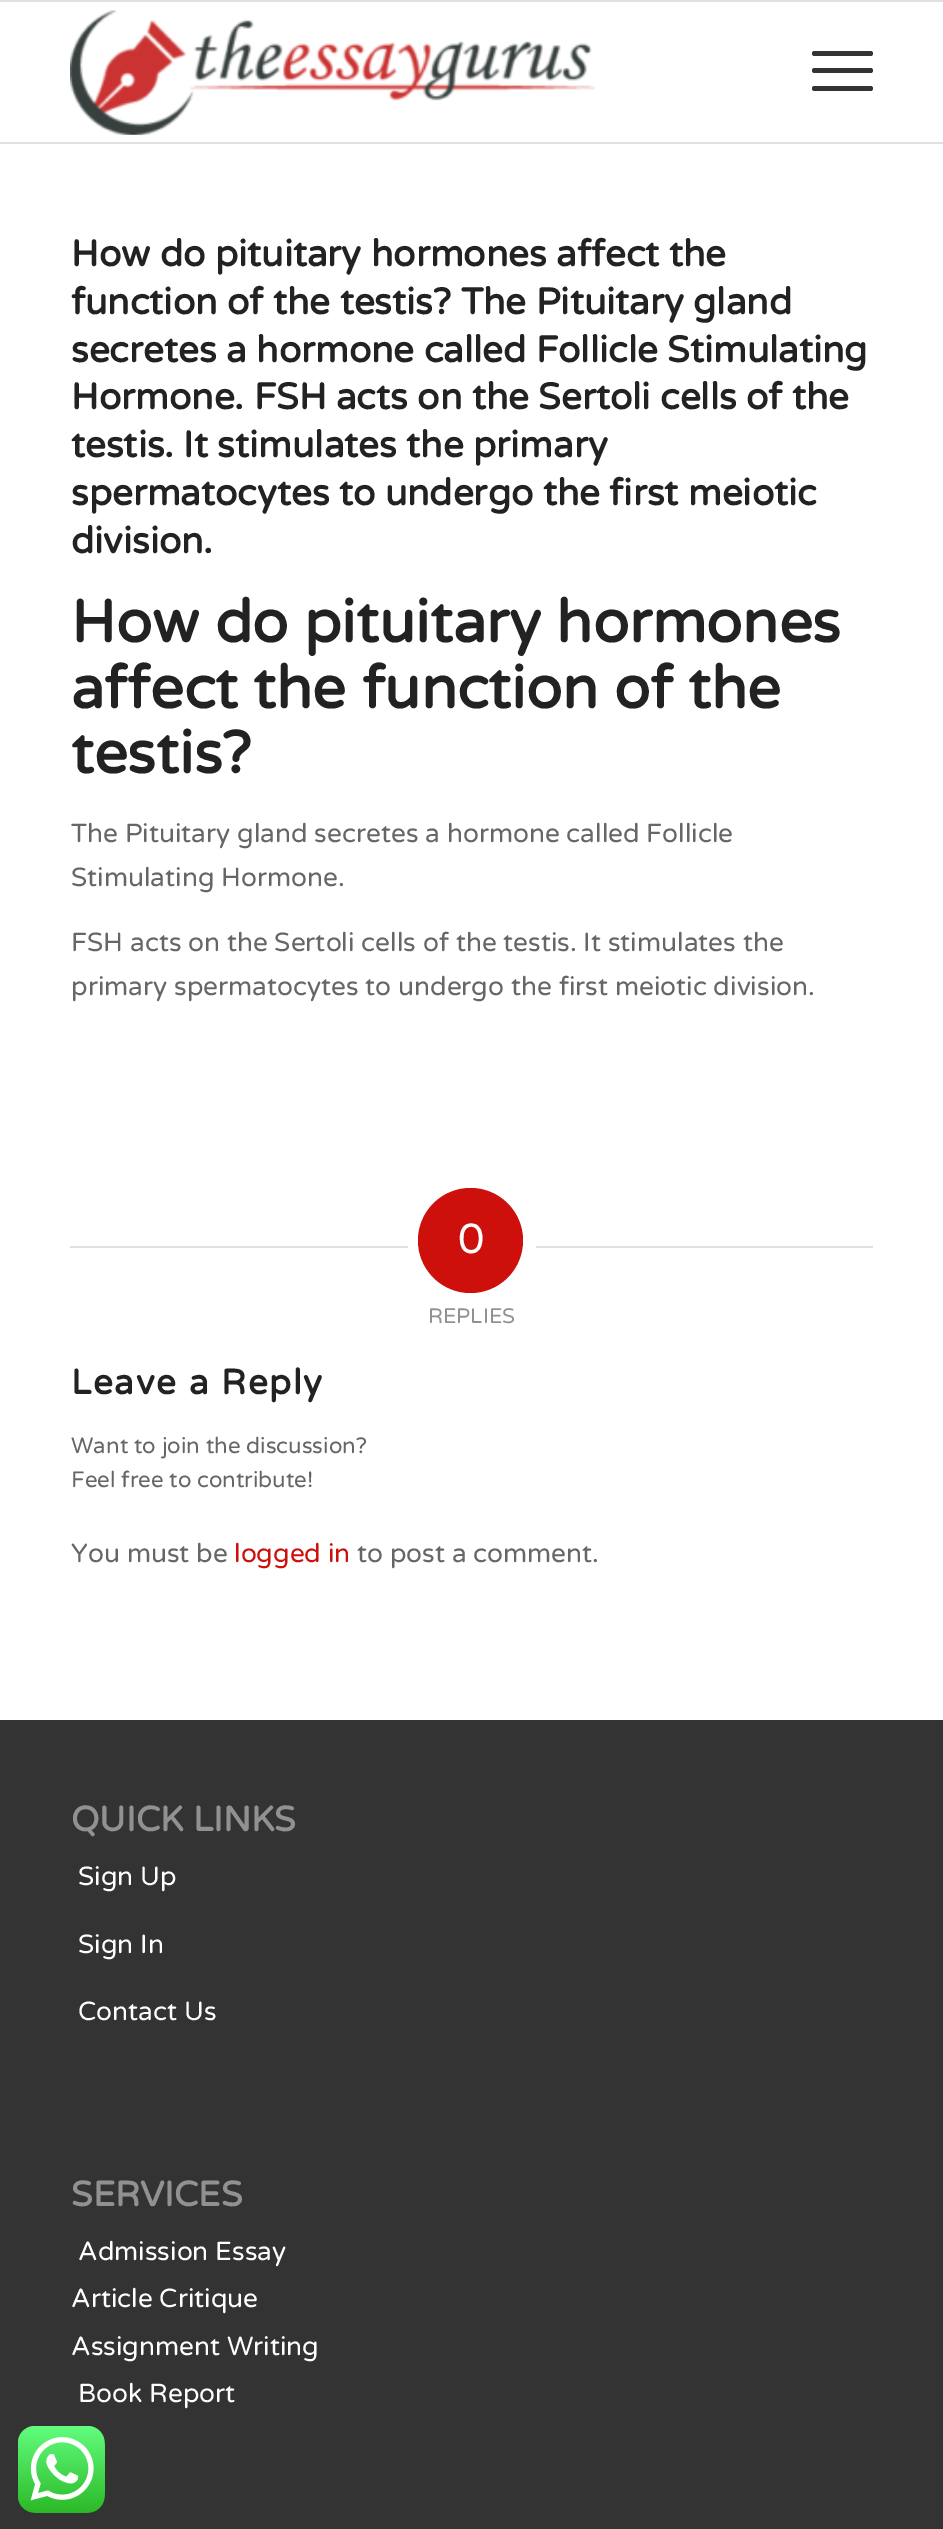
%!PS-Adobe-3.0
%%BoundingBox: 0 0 943 2529
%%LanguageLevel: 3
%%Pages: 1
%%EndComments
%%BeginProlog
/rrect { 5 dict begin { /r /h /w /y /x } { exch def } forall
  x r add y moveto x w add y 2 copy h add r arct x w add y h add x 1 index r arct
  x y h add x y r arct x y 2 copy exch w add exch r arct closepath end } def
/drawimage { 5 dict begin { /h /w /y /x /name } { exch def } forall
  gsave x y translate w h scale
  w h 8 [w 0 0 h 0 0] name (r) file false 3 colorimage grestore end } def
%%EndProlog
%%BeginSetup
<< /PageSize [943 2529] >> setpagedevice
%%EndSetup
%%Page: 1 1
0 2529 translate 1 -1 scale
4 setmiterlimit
1 setgray
0 0 943 2529 rectfill
0.882 setgray
0 0 943 2 rectfill
0 142 943 2 rectfill
(images/1.raw) 70 10 525 125 drawimage
0.2 setgray
812 68 61 5 2.5 rrect fill
812 51 61 5 2.5 rrect fill
812 86 61 5 2.5 rrect fill
0.882 setgray
70 1246 338 2 rectfill
0.808 0.063 0.051 setrgbcolor
newpath 470.5 1240.5 52.5 0 360 arc closepath fill
0.882 setgray
536 1246 337 2 rectfill
0.2 setgray
0 1720 943 809 rectfill
(images/2.raw) 18 2426 87 87 drawimage
/VarelaRound-Bold [36.75 0 0 -36.75 0 0] selectfont
0.133 setgray
71 266 moveto (How do pituitary hormones affect the) show
71 314 moveto (function of the testis? The Pituitary gland) show
71 362 moveto (secretes a hormone called Follicle Stimulating) show
71 409 moveto (Hormone. FSH acts on the Sertoli cells of the) show
71 457 moveto (testis. It stimulates the primary) show
71 505 moveto (spermatocytes to undergo the first meiotic) show
71 553 moveto (division.) show
/VarelaRound-Bold [59.5 0 0 -59.5 0 0] selectfont
71 642 moveto (How do pituitary hormones) show
71 708 moveto (affect the function of the) show
71 773 moveto (testis?) show
/VarelaRound-Regular [26.25 0 0 -26.25 0 0] selectfont
0.4 setgray
71 842 moveto (The Pituitary gland secretes a hormone called Follicle) show
71 886 moveto (Stimulating Hormone.) show
71 951 moveto (FSH acts on the Sertoli cells of the testis. It stimulates the) show
71 995 moveto (primary spermatocytes to undergo the first meiotic division.) show
/VarelaRound-Regular [42 0 0 -42 0 0] selectfont
1 setgray
458 1253 moveto (0) show
/VarelaRound-Regular [21 0 0 -21 0 0] selectfont
0.569 setgray
428 1323 moveto (REPLIES) show
/VarelaRound-Bold [35 0 0 -35 0 0] selectfont
0.133 setgray
71 1394 moveto 1.75 0 (Leave a Reply) ashow
/VarelaRound-Regular [22.25 0 0 -22.25 0 0] selectfont
0.4 setgray
71 1453 moveto (Want to join the discussion?) show
71 1487 moveto (Feel free to contribute!) show
/VarelaRound-Regular [26.25 0 0 -26.25 0 0] selectfont
71 1562 moveto (You must be) show
0.808 0.063 0.051 setrgbcolor
234 1562 moveto (logged in) show
0.4 setgray
357 1562 moveto (to post a comment.) show
/VarelaRound-Bold [35 0 0 -35 0 0] selectfont
0.569 setgray
71 1831 moveto (QUICK LINKS) show
/VarelaRound-Regular [26.25 0 0 -26.25 0 0] selectfont
1 setgray
78 1885 moveto (Sign Up) show
78 1953 moveto (Sign In) show
78 2020 moveto (Contact Us) show
/VarelaRound-Bold [35 0 0 -35 0 0] selectfont
0.569 setgray
71 2206 moveto (SERVICES) show
/VarelaRound-Regular [26.25 0 0 -26.25 0 0] selectfont
1 setgray
78 2260 moveto (Admission Essay) show
71 2307 moveto (Article Critique) show
71 2355 moveto (Assignment Writing) show
78 2402 moveto (Book Report) show
showpage
%%EOF
